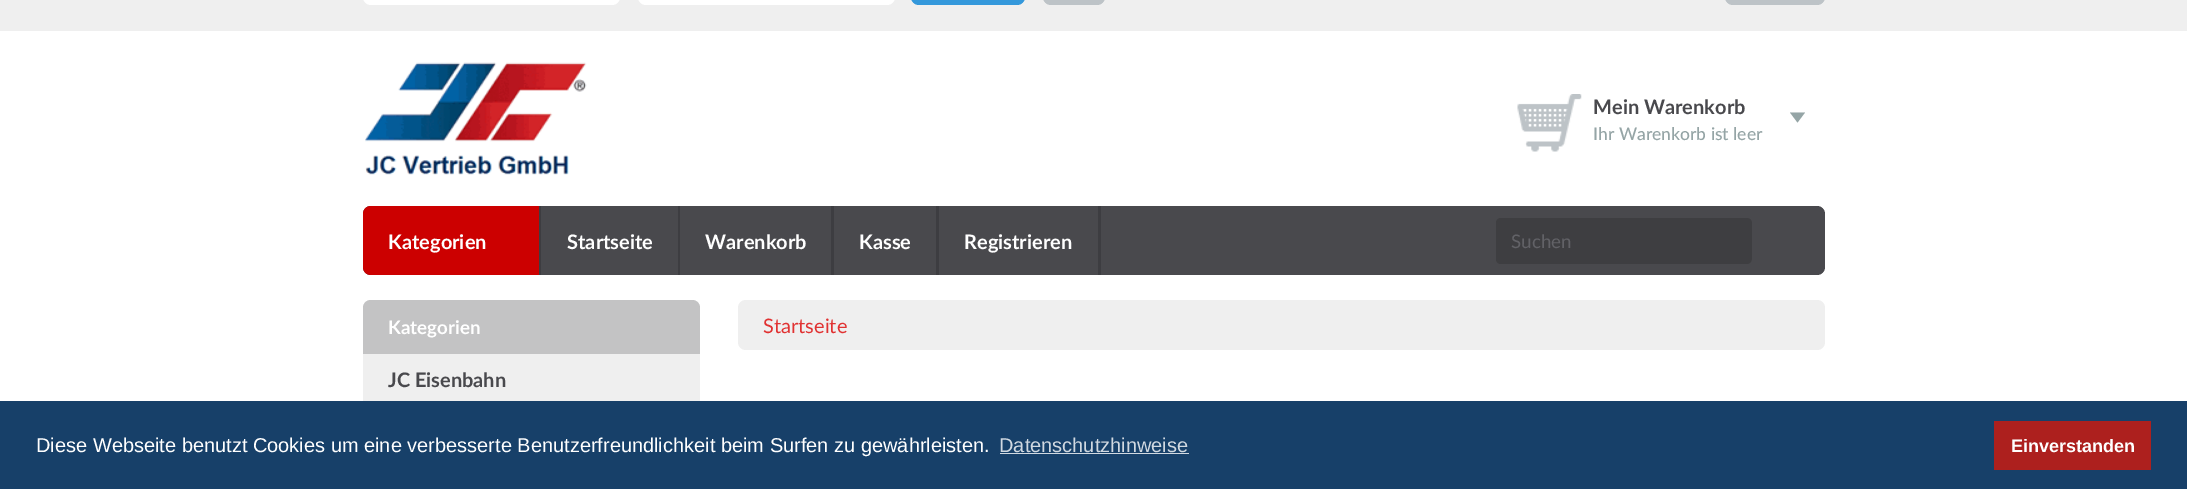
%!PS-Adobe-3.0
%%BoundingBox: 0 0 2187 489
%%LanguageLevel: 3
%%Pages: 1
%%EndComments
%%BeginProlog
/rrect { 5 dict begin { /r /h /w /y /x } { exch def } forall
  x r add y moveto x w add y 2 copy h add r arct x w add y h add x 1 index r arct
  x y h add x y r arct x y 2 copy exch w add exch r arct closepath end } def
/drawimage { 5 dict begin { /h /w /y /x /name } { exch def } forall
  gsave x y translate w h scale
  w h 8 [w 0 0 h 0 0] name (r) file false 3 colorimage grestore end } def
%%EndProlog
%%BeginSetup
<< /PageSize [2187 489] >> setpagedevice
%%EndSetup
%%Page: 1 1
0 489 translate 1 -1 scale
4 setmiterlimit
1 setgray
0 0 2187 489 rectfill
0.937 setgray
0 0 2187 31 rectfill
1 setgray
363 -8 257 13 8 rrect fill
638 -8 257 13 8 rrect fill
0.204 0.596 0.859 setrgbcolor
911 -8 114 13 8 rrect fill
0.741 0.765 0.78 setrgbcolor
1043 -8 62 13 8 rrect fill
1725 -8 100 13 8 rrect fill
(images/1.raw) 365 62 222 113 drawimage
(images/2.raw) 1517 94 65 58 drawimage
0.584 0.647 0.651 setrgbcolor
newpath 1790 112.5 moveto 1805 112.5 lineto 1797.5 122.5 lineto closepath fill
0.286 0.286 0.302 setrgbcolor
363 206 1462 69 8 rrect fill
0.8 0 0 setrgbcolor
newpath 371 206 moveto 539 206 lineto 539 275 lineto 371 275 lineto 366.5 275 363 271.5 363 267 curveto 363 214 lineto 363 209.5 366.5 206 371 206 curveto closepath fill
0.239 0.239 0.255 setrgbcolor
539 206 2 69 rectfill
678 206 2 69 rectfill
831 206 3 69 rectfill
936 206 3 69 rectfill
1098 206 3 69 rectfill
0.243 0.243 0.255 setrgbcolor
newpath 1704 218 moveto 1748 218 lineto 1751 218 1753 220 1753 223 curveto 1753 259 lineto 1753 262 1751 264 1748 264 curveto 1704 264 lineto closepath fill
0.286 0.286 0.302 setrgbcolor
newpath 1704 215 moveto 1748 215 lineto 1752 215 1755 218 1755 222 curveto 1755 259 lineto 1755 263 1752 266 1748 266 curveto 1704 266 lineto closepath 1704 218 moveto 1748 218 lineto 1750 218 1752 220 1752 222 curveto 1752 259 lineto 1752 262 1750 264 1748 264 curveto 1704 264 lineto closepath eofill
0.243 0.243 0.255 setrgbcolor
newpath 1501 218 moveto 1706 218 lineto 1706 264 lineto 1501 264 lineto 1498 264 1496 262 1496 259 curveto 1496 223 lineto 1496 220 1498 218 1501 218 curveto closepath fill
0.937 setgray
363 300 337 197 8 rrect fill
0.765 0.765 0.769 setrgbcolor
newpath 371 300 moveto 692 300 lineto 696.5 300 700 303.5 700 308 curveto 700 354 lineto 363 354 lineto 363 308 lineto 363 303.5 366.5 300 371 300 curveto closepath fill
0.937 setgray
738 300 1087 50 8 rrect fill
0.09 0.251 0.412 setrgbcolor
0 401 2187 88 rectfill
0.82 0.851 0.882 setrgbcolor
1000 453 189 1 rectfill
0.678 0.125 0.118 setrgbcolor
1994 421 157 49 rectfill
/Lato-Bold [20 0 0 -20 0 0] selectfont
0.286 0.286 0.302 setrgbcolor
1593 114 moveto (Mein Warenkorb) show
/Lato-Medium [17.5 0 0 -17.5 0 0] selectfont
0.584 0.647 0.651 setrgbcolor
1593 140 moveto (Ihr Warenkorb ist leer) show
/Lato-Bold [20 0 0 -20 0 0] selectfont
1 setgray
388 249 moveto (Kategorien) show
567 249 moveto (Startseite) show
705 249 moveto (Warenkorb) show
859 249 moveto (Kasse) show
964 249 moveto (Registrieren) show
/Lato-Regular [18.75 0 0 -18.75 0 0] selectfont
0.384 0.384 0.404 setrgbcolor
1511 248 moveto (Suchen) show
/Lato-Bold [18.75 0 0 -18.75 0 0] selectfont
1 setgray
388 334 moveto (Kategorien) show
/Lato-Bold [20 0 0 -20 0 0] selectfont
0.286 0.286 0.302 setrgbcolor
388 387 moveto (JC Eisenbahn) show
/Lato-Regular [20 0 0 -20 0 0] selectfont
0.882 0.196 0.196 setrgbcolor
763 333 moveto (Startseite) show
/LiberationSans-Regular [20 0 0 -20 0 0] selectfont
1 setgray
36 452 moveto (Diese Webseite benutzt Cookies um eine verbesserte Benutzerfreundlichkeit beim Surfen zu gewährleisten.) show
0.82 0.851 0.882 setrgbcolor
999 452 moveto (Datenschutzhinweise) show
/LiberationSans-Bold [18 0 0 -18 0 0] selectfont
1 setgray
2011 452 moveto (Einverstanden) show
showpage
%%EOF
